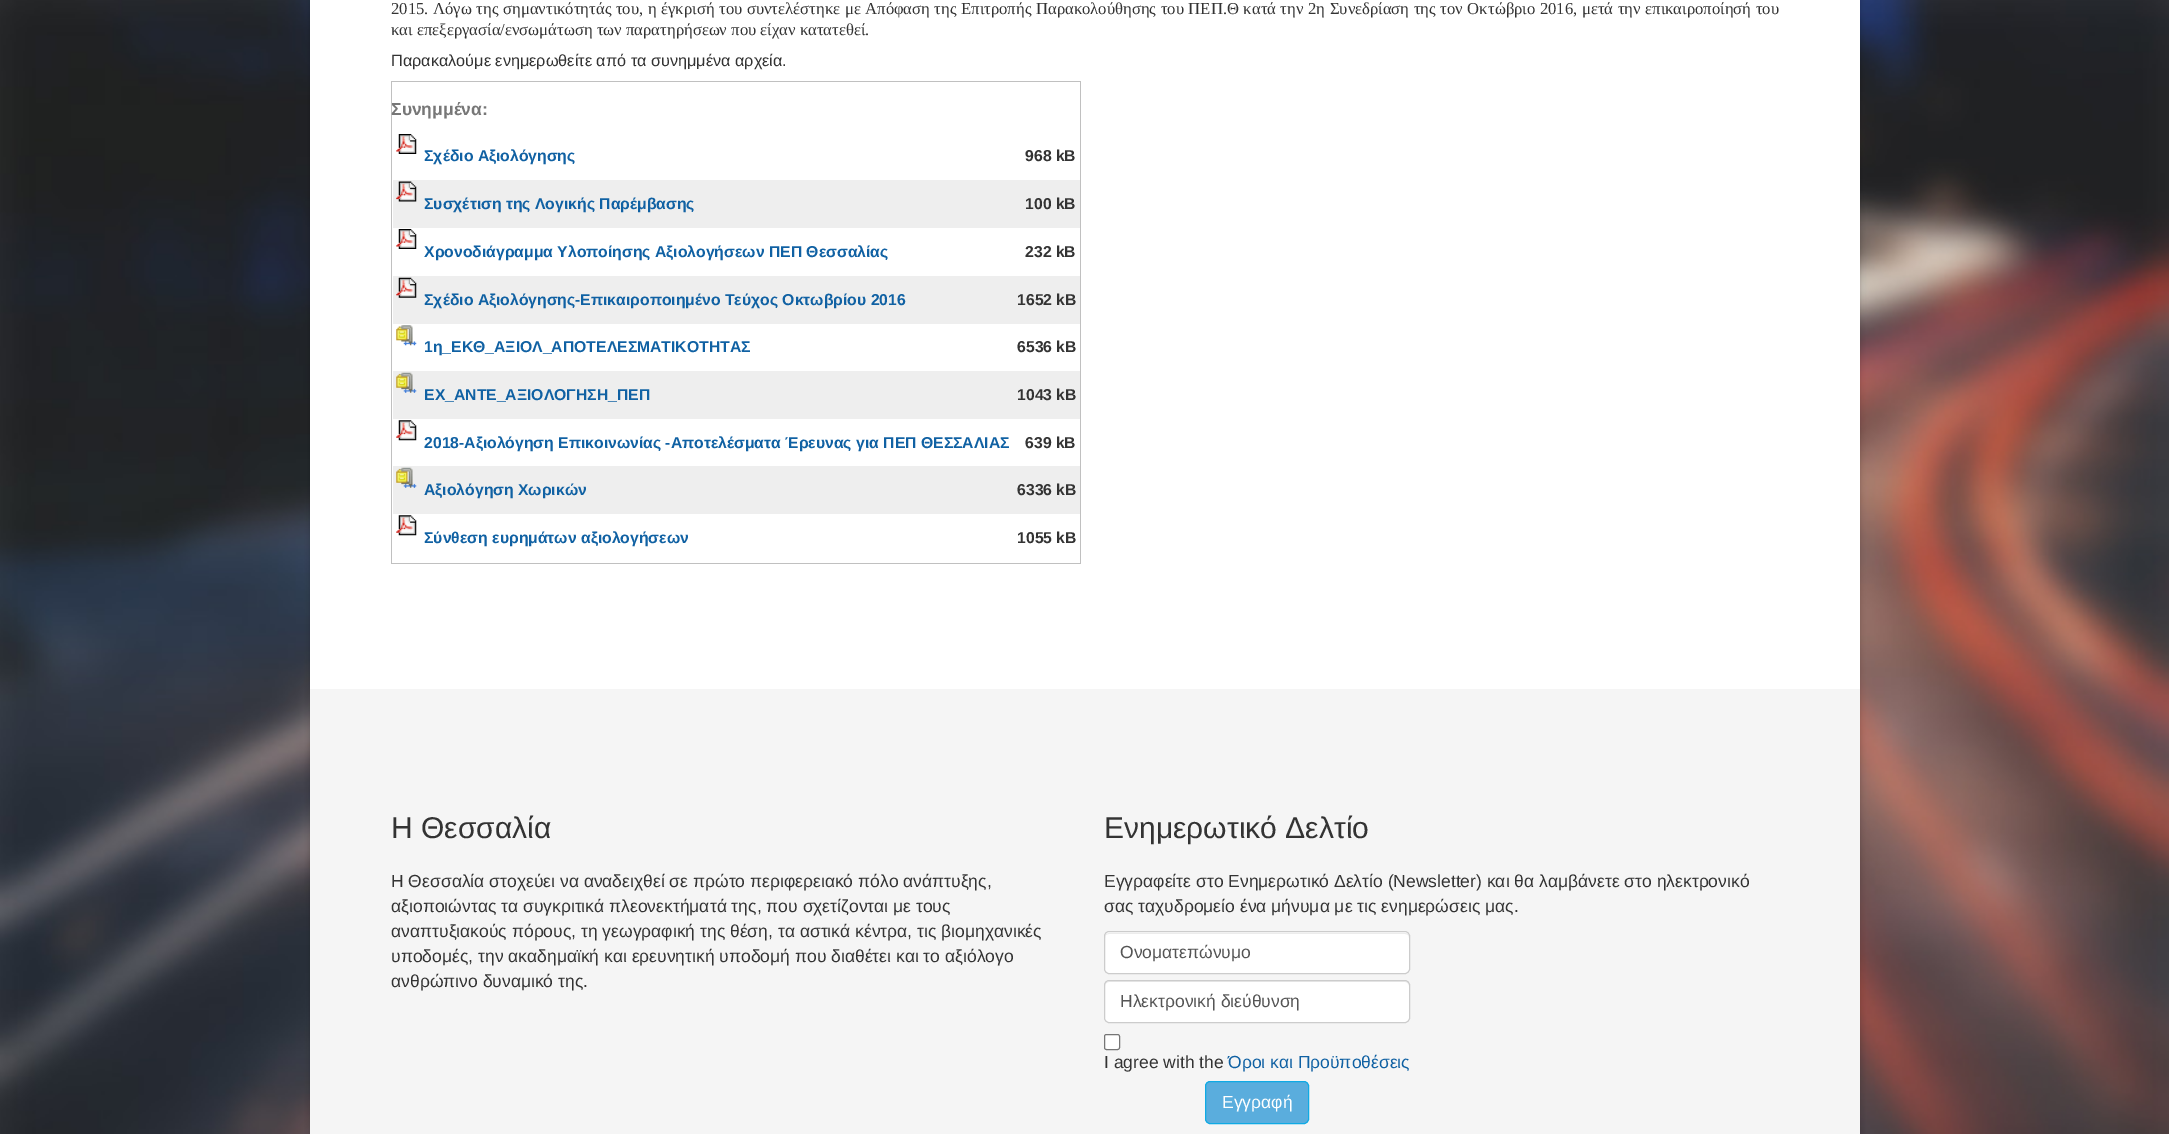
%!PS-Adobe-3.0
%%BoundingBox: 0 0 2169 1134
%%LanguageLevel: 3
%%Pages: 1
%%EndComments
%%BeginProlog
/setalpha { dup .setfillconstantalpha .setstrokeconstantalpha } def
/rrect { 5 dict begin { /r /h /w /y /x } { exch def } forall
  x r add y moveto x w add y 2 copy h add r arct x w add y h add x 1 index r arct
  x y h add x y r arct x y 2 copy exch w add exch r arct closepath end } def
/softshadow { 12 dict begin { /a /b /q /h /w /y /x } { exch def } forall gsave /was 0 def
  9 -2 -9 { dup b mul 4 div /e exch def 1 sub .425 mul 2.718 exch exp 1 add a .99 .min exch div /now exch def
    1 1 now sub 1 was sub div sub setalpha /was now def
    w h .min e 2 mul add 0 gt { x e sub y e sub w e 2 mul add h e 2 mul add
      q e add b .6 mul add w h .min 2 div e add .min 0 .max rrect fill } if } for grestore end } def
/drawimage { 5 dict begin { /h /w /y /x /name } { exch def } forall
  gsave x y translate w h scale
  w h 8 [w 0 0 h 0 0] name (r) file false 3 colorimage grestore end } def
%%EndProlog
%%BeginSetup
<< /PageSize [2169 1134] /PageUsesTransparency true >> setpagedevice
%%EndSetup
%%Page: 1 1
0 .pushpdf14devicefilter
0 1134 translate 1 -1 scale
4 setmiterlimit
1 setgray
0 0 2169 1134 rectfill
(images/1.raw) 0 0 2169 1134 drawimage
0 setgray
310 -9 1550 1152 0 3 0.2 softshadow
1 setgray
310 0 1550 689 rectfill
0.753 setgray
391 81 690 1 rectfill
1080 81 1 483 rectfill
391 563 690 1 rectfill
391 81 1 483 rectfill
(images/2.raw) 396 134 21 20 drawimage
0.933 setgray
393 180 687 48 rectfill
(images/3.raw) 396 181 21 21 drawimage
(images/2.raw) 396 229 21 20 drawimage
393 276 687 48 rectfill
(images/4.raw) 396 277 21 21 drawimage
(images/5.raw) 396 325 21 21 drawimage
393 371 687 48 rectfill
(images/6.raw) 396 372 21 21 drawimage
(images/7.raw) 396 420 21 21 drawimage
393 466 687 48 rectfill
(images/8.raw) 396 467 21 21 drawimage
(images/7.raw) 396 515 21 21 drawimage
0.961 setgray
310 689 1550 445 rectfill
1 setgray
1104 931 306 43 5 rrect fill
0.925 setgray
newpath 1109 934 moveto 1405 934 lineto 1407 934 1409 935 1409 938 curveto 1409 935 1408 933 1405 933 curveto 1109 933 lineto 1106 934 lineto 1105 935 1105 937 1105 938 curveto 1105 935 1107 934 1109 934 curveto closepath fill
0.8 setgray
1104.5 931.5 305 42 4.5 rrect stroke
1 setgray
1104 980 306 43 5 rrect fill
0.925 setgray
newpath 1109 982 moveto 1405 982 lineto 1407 982 1409 984 1409 986 curveto 1409 983 1408 981 1405 981 curveto 1109 981 lineto 1106 982 lineto 1105 983 1105 985 1105 986 curveto 1105 984 1107 982 1109 982 curveto closepath fill
0.8 setgray
1104.5 980.5 305 42 4.5 rrect stroke
1 setgray
1104.5 1034.5 15 15 2 rrect gsave fill grestore
0.463 setgray
stroke
0.353 0.678 0.867 setrgbcolor
1205.5 1081.5 103 42 4.5 rrect gsave fill grestore
0.059 0.667 0.894 setrgbcolor
stroke
/LiberationSerif-Regular [16.67 0 0 -16.67 0 0] selectfont
0.2 setgray
391 14 moveto 0.4 0 32 (2015. Λόγω της σημαντικότητάς του, η έγκρισή του συντελέστηκε με Απόφαση της Επιτροπής Παρακολούθησης του ΠΕΠ.Θ κατά την 2η Συνεδρίαση της τον Οκτώβριο 2016, μετά την επικαιροποίησή του) widthshow
391 35 moveto (και επεξεργασία/ενσωμάτωση των παρατηρήσεων που είχαν κατατεθεί.) show
/LiberationSans-Regular [16.25 0 0 -16.25 0 0] selectfont
391 66 moveto (Παρακαλούμε ενημερωθείτε από τα συνημμένα αρχεία.) show
/LiberationSans-Bold [17.5 0 0 -17.5 0 0] selectfont
0.467 setgray
391 115 moveto (Συνημμένα:) show
/LiberationSans-Bold [15.75 0 0 -15.75 0 0] selectfont
0.063 0.38 0.639 setrgbcolor
424 161 moveto (Σχέδιο Αξιολόγησης) show
0.2 setgray
1025 161 moveto (968 kB) show
0.063 0.38 0.639 setrgbcolor
424 209 moveto (Συσχέτιση της Λογικής Παρέμβασης) show
0.2 setgray
1025 209 moveto (100 kB) show
0.063 0.38 0.639 setrgbcolor
424 257 moveto (Χρονοδιάγραμμα Υλοποίησης Αξιολογήσεων ΠΕΠ Θεσσαλίας) show
0.2 setgray
1025 257 moveto (232 kB) show
0.063 0.38 0.639 setrgbcolor
424 305 moveto (Σχέδιο Αξιολόγησης-Επικαιροποιημένο Τεύχος Οκτωβρίου 2016) show
0.2 setgray
1017 305 moveto (1652 kB) show
0.063 0.38 0.639 setrgbcolor
424 352 moveto (1η_ΕΚΘ_ΑΞΙΟΛ_ΑΠΟΤΕΛΕΣΜΑΤΙΚΟΤΗΤΑΣ) show
0.2 setgray
1017 352 moveto (6536 kB) show
0.063 0.38 0.639 setrgbcolor
424 400 moveto (ΕΧ_ΑΝΤΕ_ΑΞΙΟΛΟΓΗΣΗ_ΠΕΠ) show
0.2 setgray
1017 400 moveto (1043 kB) show
0.063 0.38 0.639 setrgbcolor
424 448 moveto (2018-Αξιολόγηση Επικοινωνίας -Αποτελέσματα Έρευνας για ΠΕΠ ΘΕΣΣΑΛΙΑΣ) show
0.2 setgray
1025 448 moveto (639 kB) show
0.063 0.38 0.639 setrgbcolor
424 495 moveto (Αξιολόγηση Χωρικών) show
0.2 setgray
1017 495 moveto (6336 kB) show
0.063 0.38 0.639 setrgbcolor
424 543 moveto (Σύνθεση ευρημάτων αξιολογήσεων) show
0.2 setgray
1017 543 moveto (1055 kB) show
/LiberationSans-Regular [30 0 0 -30 0 0] selectfont
391 838 moveto (Η Θεσσαλία) show
/LiberationSans-Regular [17.5 0 0 -17.5 0 0] selectfont
391 887 moveto (Η Θεσσαλία στοχεύει να αναδειχθεί σε πρώτο περιφερειακό πόλο ανάπτυξης,) show
391 912 moveto (αξιοποιώντας τα συγκριτικά πλεονεκτήματά της, που σχετίζονται με τους) show
391 937 moveto (αναπτυξιακούς πόρους, τη γεωγραφική της θέση, τα αστικά κέντρα, τις βιομηχανικές) show
391 962 moveto (υποδομές, την ακαδημαϊκή και ερευνητική υποδομή που διαθέτει και το αξιόλογο) show
391 987 moveto (ανθρώπινο δυναμικό της.) show
/LiberationSans-Regular [30 0 0 -30 0 0] selectfont
1104 838 moveto (Ενημερωτικό Δελτίο) show
/LiberationSans-Regular [17.5 0 0 -17.5 0 0] selectfont
1104 887 moveto (Εγγραφείτε στο Ενημερωτικό Δελτίο \(Newsletter\) και θα λαμβάνετε στο ηλεκτρονικό) show
1104 912 moveto (σας ταχυδρομείο ένα μήνυμα με τις ενημερώσεις μας.) show
0.333 setgray
1120 958 moveto (Ονοματεπώνυμο) show
1120 1007 moveto (Ηλεκτρονική διεύθυνση) show
0.2 setgray
1104 1068 moveto (I agree with the) show
0.063 0.38 0.639 setrgbcolor
1228 1068 moveto (Όροι και Προϋποθέσεις) show
1 setgray
1222 1108 moveto (Εγγραφή) show
.poppdf14devicefilter showpage
%%EOF
